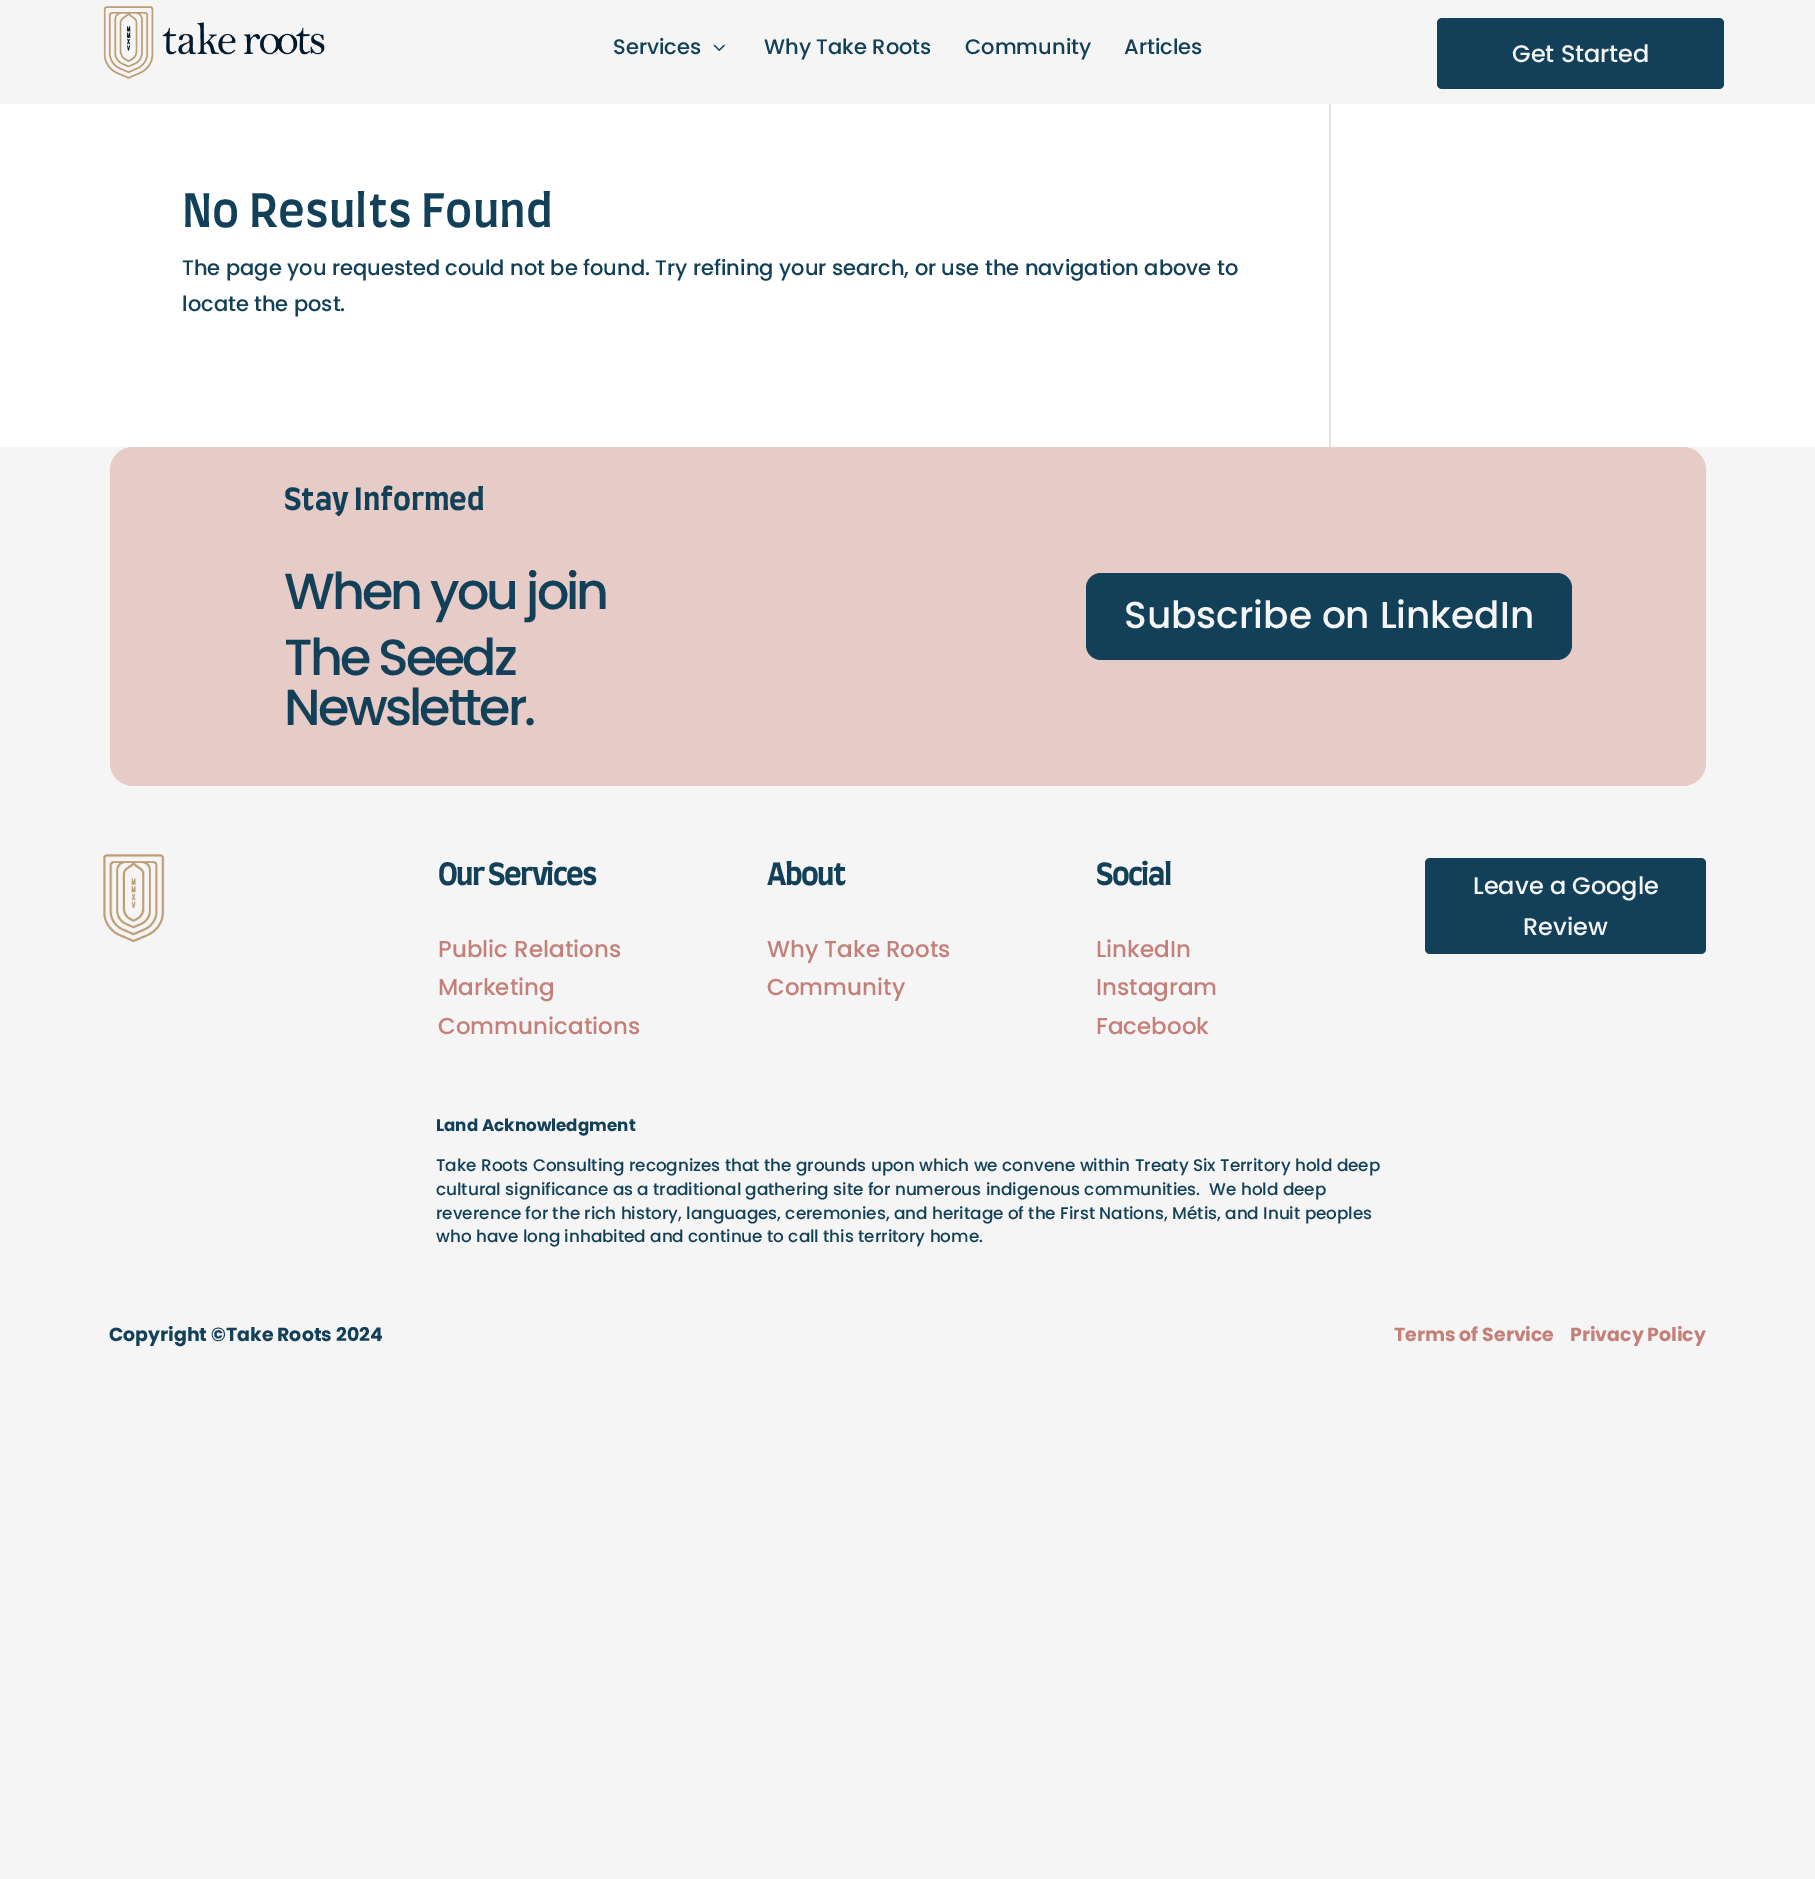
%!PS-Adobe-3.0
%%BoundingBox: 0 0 1815 1879
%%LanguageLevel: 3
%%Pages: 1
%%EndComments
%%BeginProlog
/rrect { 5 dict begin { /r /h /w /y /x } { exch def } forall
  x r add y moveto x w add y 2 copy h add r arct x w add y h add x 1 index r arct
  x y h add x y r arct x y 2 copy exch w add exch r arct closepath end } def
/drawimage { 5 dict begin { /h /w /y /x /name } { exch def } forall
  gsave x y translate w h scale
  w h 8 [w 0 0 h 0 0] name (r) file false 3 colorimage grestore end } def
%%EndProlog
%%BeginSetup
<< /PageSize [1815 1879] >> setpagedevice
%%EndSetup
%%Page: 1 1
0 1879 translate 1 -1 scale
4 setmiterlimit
0.961 setgray
0 0 1815 1879 rectfill
(images/1.raw) 103 6 222 73 drawimage
(images/2.raw) 713 44 12 7 drawimage
0.067 0.251 0.345 setrgbcolor
1437 18 287 71 5 rrect fill
1 setgray
0 104 1815 343 rectfill
0.886 setgray
1329 104 2 343 rectfill
0.906 0.796 0.78 setrgbcolor
110 447 1596 339 23 rrect fill
0.067 0.251 0.345 setrgbcolor
1086 573 486 87 15 rrect fill
(images/3.raw) 103 854 62 88 drawimage
1425 858 281 96 5 rrect fill
/Poppins-Medium [21 0 0 -21 0 0] selectfont
613 54 moveto (Services) show
764 54 moveto (Why Take Roots) show
965 54 moveto (Community) show
1124 54 moveto (Articles) show
/Poppins-Medium [24 0 0 -24 0 0] selectfont
0.961 setgray
1512 62 moveto (Get Started) show
/Farro-Medium [45 0 0 -45 0 0] selectfont
0.067 0.251 0.345 setrgbcolor
182 227 moveto (No Results Found) show
/Poppins-Medium [21 0 0 -21 0 0] selectfont
182 275 moveto (The page you requested could not be found. Try refining your search, or use the navigation above to) show
182 311 moveto (locate the post.) show
/Farro-Bold [30 0 0 -30 0 0] selectfont
284 510 moveto (Stay Informed) show
/Poppins-Medium [50.75 0 0 -50.75 0 0] selectfont
284 609 moveto -3 0 (When you join) ashow
284 675 moveto -3 0 (The Seedz) ashow
284 725 moveto -3 0 (Newsletter.) ashow
/Poppins-Medium [37.5 0 0 -37.5 0 0] selectfont
0.961 setgray
1124 628 moveto (Subscribe on LinkedIn) show
/Farro-Bold [30 0 0 -30 0 0] selectfont
0.067 0.251 0.345 setrgbcolor
438 885 moveto -1.5 0 (Our Services) ashow
/Poppins-Medium [23 0 0 -23 0 0] selectfont
0.769 0.502 0.471 setrgbcolor
438 957 moveto (Public Relations) show
438 995 moveto (Marketing) show
438 1034 moveto (Communications) show
/Farro-Bold [30 0 0 -30 0 0] selectfont
0.067 0.251 0.345 setrgbcolor
767 885 moveto -1.5 0 (About) ashow
/Poppins-Medium [23 0 0 -23 0 0] selectfont
0.769 0.502 0.471 setrgbcolor
767 957 moveto (Why Take Roots) show
767 995 moveto (Community) show
/Farro-Bold [30 0 0 -30 0 0] selectfont
0.067 0.251 0.345 setrgbcolor
1096 885 moveto -1.5 0 (Social) ashow
/Poppins-Medium [23 0 0 -23 0 0] selectfont
0.769 0.502 0.471 setrgbcolor
1096 957 moveto (LinkedIn) show
1096 995 moveto (Instagram) show
1096 1034 moveto (Facebook) show
/Poppins-Medium [24 0 0 -24 0 0] selectfont
0.961 setgray
1473 894 moveto (Leave a Google) show
1523 935 moveto (Review) show
/Poppins-Bold [16.8 0 0 -16.8 0 0] selectfont
0.067 0.251 0.345 setrgbcolor
436 1131 moveto (Land Acknowledgment) show
/Poppins-Medium [16.8 0 0 -16.8 0 0] selectfont
436 1171 moveto (Take Roots Consulting recognizes that the grounds upon which we convene within Treaty Six Territory hold deep) show
436 1195 moveto (cultural significance as a traditional gathering site for numerous indigenous communities.  We hold deep) show
436 1219 moveto (reverence for the rich history, languages, ceremonies, and heritage of the First Nations, Métis, and Inuit peoples) show
436 1242 moveto (who have long inhabited and continue to call this territory home.) show
/Poppins-Bold [18.9 0 0 -18.9 0 0] selectfont
109 1341 moveto (Copyright ©Take Roots 2024) show
0.769 0.502 0.471 setrgbcolor
1394 1341 moveto (Terms of Service) show
1570 1341 moveto (Privacy Policy) show
showpage
%%EOF
